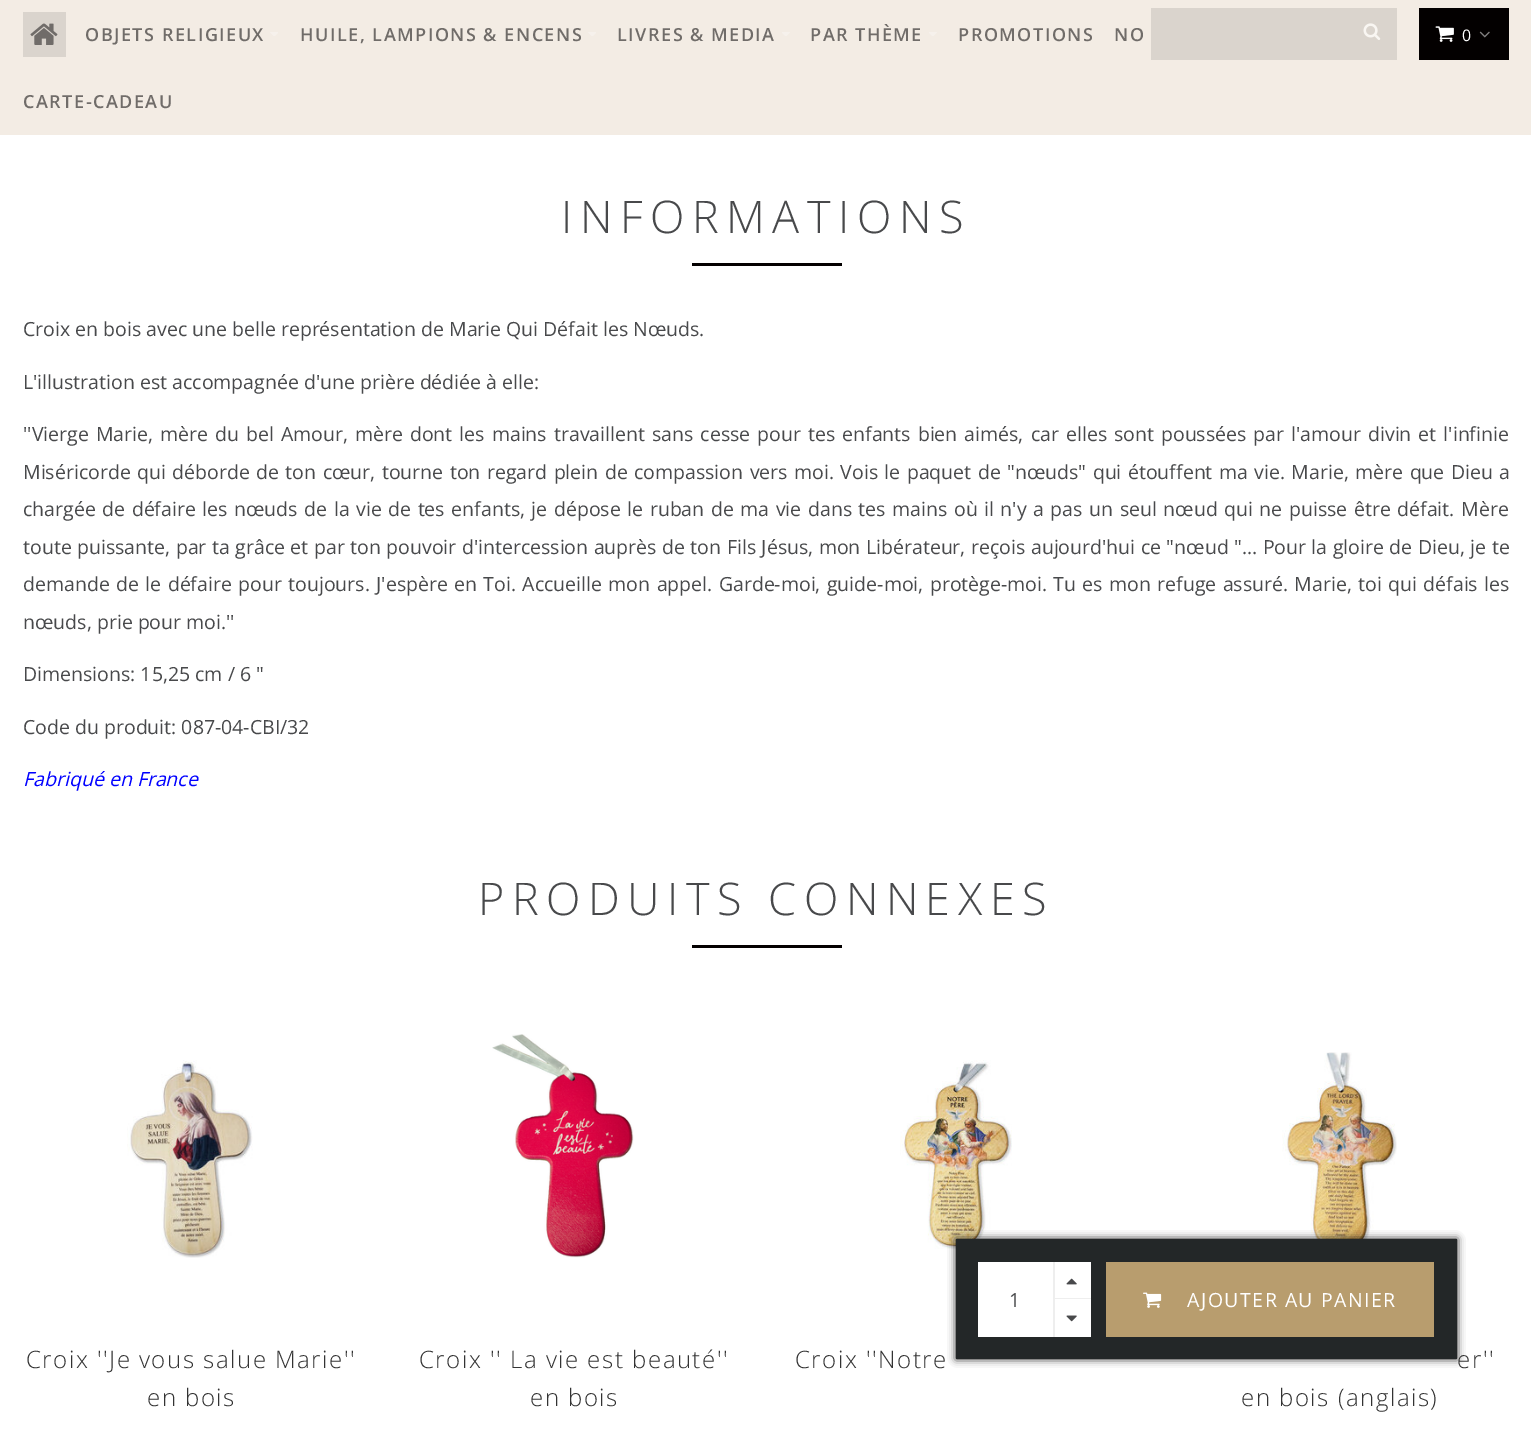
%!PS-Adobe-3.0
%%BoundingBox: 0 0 1531 1433
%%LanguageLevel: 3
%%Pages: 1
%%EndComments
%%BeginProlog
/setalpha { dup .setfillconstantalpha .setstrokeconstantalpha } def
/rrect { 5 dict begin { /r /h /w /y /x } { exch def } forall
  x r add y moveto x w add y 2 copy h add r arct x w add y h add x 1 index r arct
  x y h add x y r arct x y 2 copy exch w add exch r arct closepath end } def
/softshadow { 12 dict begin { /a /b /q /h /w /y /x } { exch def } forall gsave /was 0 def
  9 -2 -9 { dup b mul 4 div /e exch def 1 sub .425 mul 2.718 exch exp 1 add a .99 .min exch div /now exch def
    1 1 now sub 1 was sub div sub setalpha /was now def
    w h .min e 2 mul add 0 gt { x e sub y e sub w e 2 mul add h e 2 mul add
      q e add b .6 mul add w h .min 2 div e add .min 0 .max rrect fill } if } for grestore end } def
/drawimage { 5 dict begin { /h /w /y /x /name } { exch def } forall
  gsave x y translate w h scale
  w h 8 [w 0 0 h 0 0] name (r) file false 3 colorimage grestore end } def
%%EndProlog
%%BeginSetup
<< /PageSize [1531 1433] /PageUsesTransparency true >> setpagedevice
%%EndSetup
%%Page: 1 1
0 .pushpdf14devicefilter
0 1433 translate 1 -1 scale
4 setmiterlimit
1 setgray
0 0 1531 1433 rectfill
0.953 0.925 0.894 setrgbcolor
0 0 1531 135 rectfill
0.855 0.831 0.804 setrgbcolor
23 12 43 45 rectfill
(images/1.raw) 30 23 28 22 drawimage
(images/2.raw) 270 32 8 4 drawimage
(images/2.raw) 588 32 8 4 drawimage
(images/3.raw) 782 32 8 4 drawimage
(images/3.raw) 929 32 8 4 drawimage
1151 8 246 52 rectfill
(images/4.raw) 1363 23 18 17 drawimage
0.012 0 0 setrgbcolor
1419 8 90 52 rectfill
(images/5.raw) 1435 26 19 16 drawimage
(images/6.raw) 1479 31 11 7 drawimage
692 263 150 3 rectfill
692 945 150 3 rectfill
(images/7.raw) 127 1060 126 198 drawimage
(images/8.raw) 492 1034 142 224 drawimage
(images/9.raw) 900 1060 112 189 drawimage
(images/10.raw) 1282 1052 115 187 drawimage
0.047 setgray
956 1239 501 120 0 4 1 softshadow
0.137 0.153 0.157 setrgbcolor
956 1239 501 120 rectfill
1 setgray
978 1262 113 75 rectfill
0.933 setgray
1053 1298 38 1 rectfill
1053 1262 2 75 rectfill
(images/11.raw) 1066 1278 11 7 drawimage
(images/12.raw) 1066 1315 11 7 drawimage
0.722 0.616 0.431 setrgbcolor
1106 1262 328 75 rectfill
(images/13.raw) 1143 1292 19 16 drawimage
/OpenSans-SemiBold [18 0 0 -18 0 0] selectfont
0.439 0.424 0.412 setrgbcolor
85 41 moveto 1.5 0 (OBJETS RELIGIEUX) ashow
300 41 moveto 1.5 0 (HUILE, LAMPIONS & ENCENS) ashow
617 41 moveto 1.5 0 (LIVRES & MEDIA) ashow
810 41 moveto 1.5 0 (PAR THÈME) ashow
958 41 moveto 1.5 0 (PROMOTIONS) ashow
1114 41 moveto 1.5 0 (NO) ashow
23 108 moveto 1.5 0 (CARTE-CADEAU) ashow
/OpenSans-Regular [16 0 0 -16 0 0] selectfont
1 setgray
1462 41 moveto 1.5 0 (0) ashow
/OpenSans-Light [45 0 0 -45 0 0] selectfont
0.282 0.286 0.294 setrgbcolor
561 233 moveto 7.5 0 (INFORMATIONS) ashow
/OpenSans-Regular [19.5 0 0 -19.5 0 0] selectfont
23 336 moveto (Croix en bois avec une belle représentation de Marie Qui Défait les Nœuds.) show
23 389 moveto (L'illustration est accompagnée d'une prière dédiée à elle:) show
23 441 moveto 2 0 32 (''Vierge Marie, mère du bel Amour, mère dont les mains travaillent sans cesse pour tes enfants bien aimés, car elles sont poussées par l'amour divin et l'infinie) widthshow
23 479 moveto 1.4 0 32 (Miséricorde qui déborde de ton cœur, tourne ton regard plein de compassion vers moi. Vois le paquet de "nœuds" qui étouffent ma vie. Marie, mère que Dieu a) widthshow
23 516 moveto 1.5 0 32 (chargée de défaire les nœuds de la vie de tes enfants, je dépose le ruban de ma vie dans tes mains où il n'y a pas un seul nœud qui ne puisse être défait. Mère) widthshow
23 554 moveto 0.45 0 32 (toute puissante, par ta grâce et par ton pouvoir d'intercession auprès de ton Fils Jésus, mon Libérateur, reçois aujourd'hui ce "nœud "… Pour la gloire de Dieu, je te) widthshow
23 591 moveto 1.35 0 32 (demande de le défaire pour toujours. J'espère en Toi. Accueille mon appel. Garde-moi, guide-moi, protège-moi. Tu es mon refuge assuré. Marie, toi qui défais les) widthshow
23 629 moveto (nœuds, prie pour moi.'') show
23 681 moveto (Dimensions: 15,25 cm / 6 ") show
23 734 moveto (Code du produit: 087-04-CBI/32) show
/OpenSans-Italic [19.5 0 0 -19.5 0 0] selectfont
0 0 1 setrgbcolor
23 786 moveto (Fabriqué en France) show
/OpenSans-Light [45 0 0 -45 0 0] selectfont
0.282 0.286 0.294 setrgbcolor
478 915 moveto 7.5 0 (PRODUITS CONNEXES) ashow
/OpenSans-Light [24 0 0 -24 0 0] selectfont
0.2 setgray
26 1368 moveto 1.5 0 (Croix ''Je vous salue Marie'') ashow
147 1406 moveto 1.5 0 (en bois) ashow
419 1368 moveto 1.5 0 (Croix '' La vie est beauté'') ashow
530 1406 moveto 1.5 0 (en bois) ashow
795 1368 moveto 1.5 0 (Croix ''Notre) ashow
1457 1368 moveto 1.5 0 (er'') ashow
1241 1406 moveto 1.5 0 (en bois \(anglais\)) ashow
/OpenSans-Regular [19.5 0 0 -19.5 0 0] selectfont
0.282 0.286 0.294 setrgbcolor
1009 1307 moveto (1) show
1 setgray
1187 1307 moveto 1.5 0 (AJOUTER AU PANIER) ashow
.poppdf14devicefilter showpage
%%EOF
